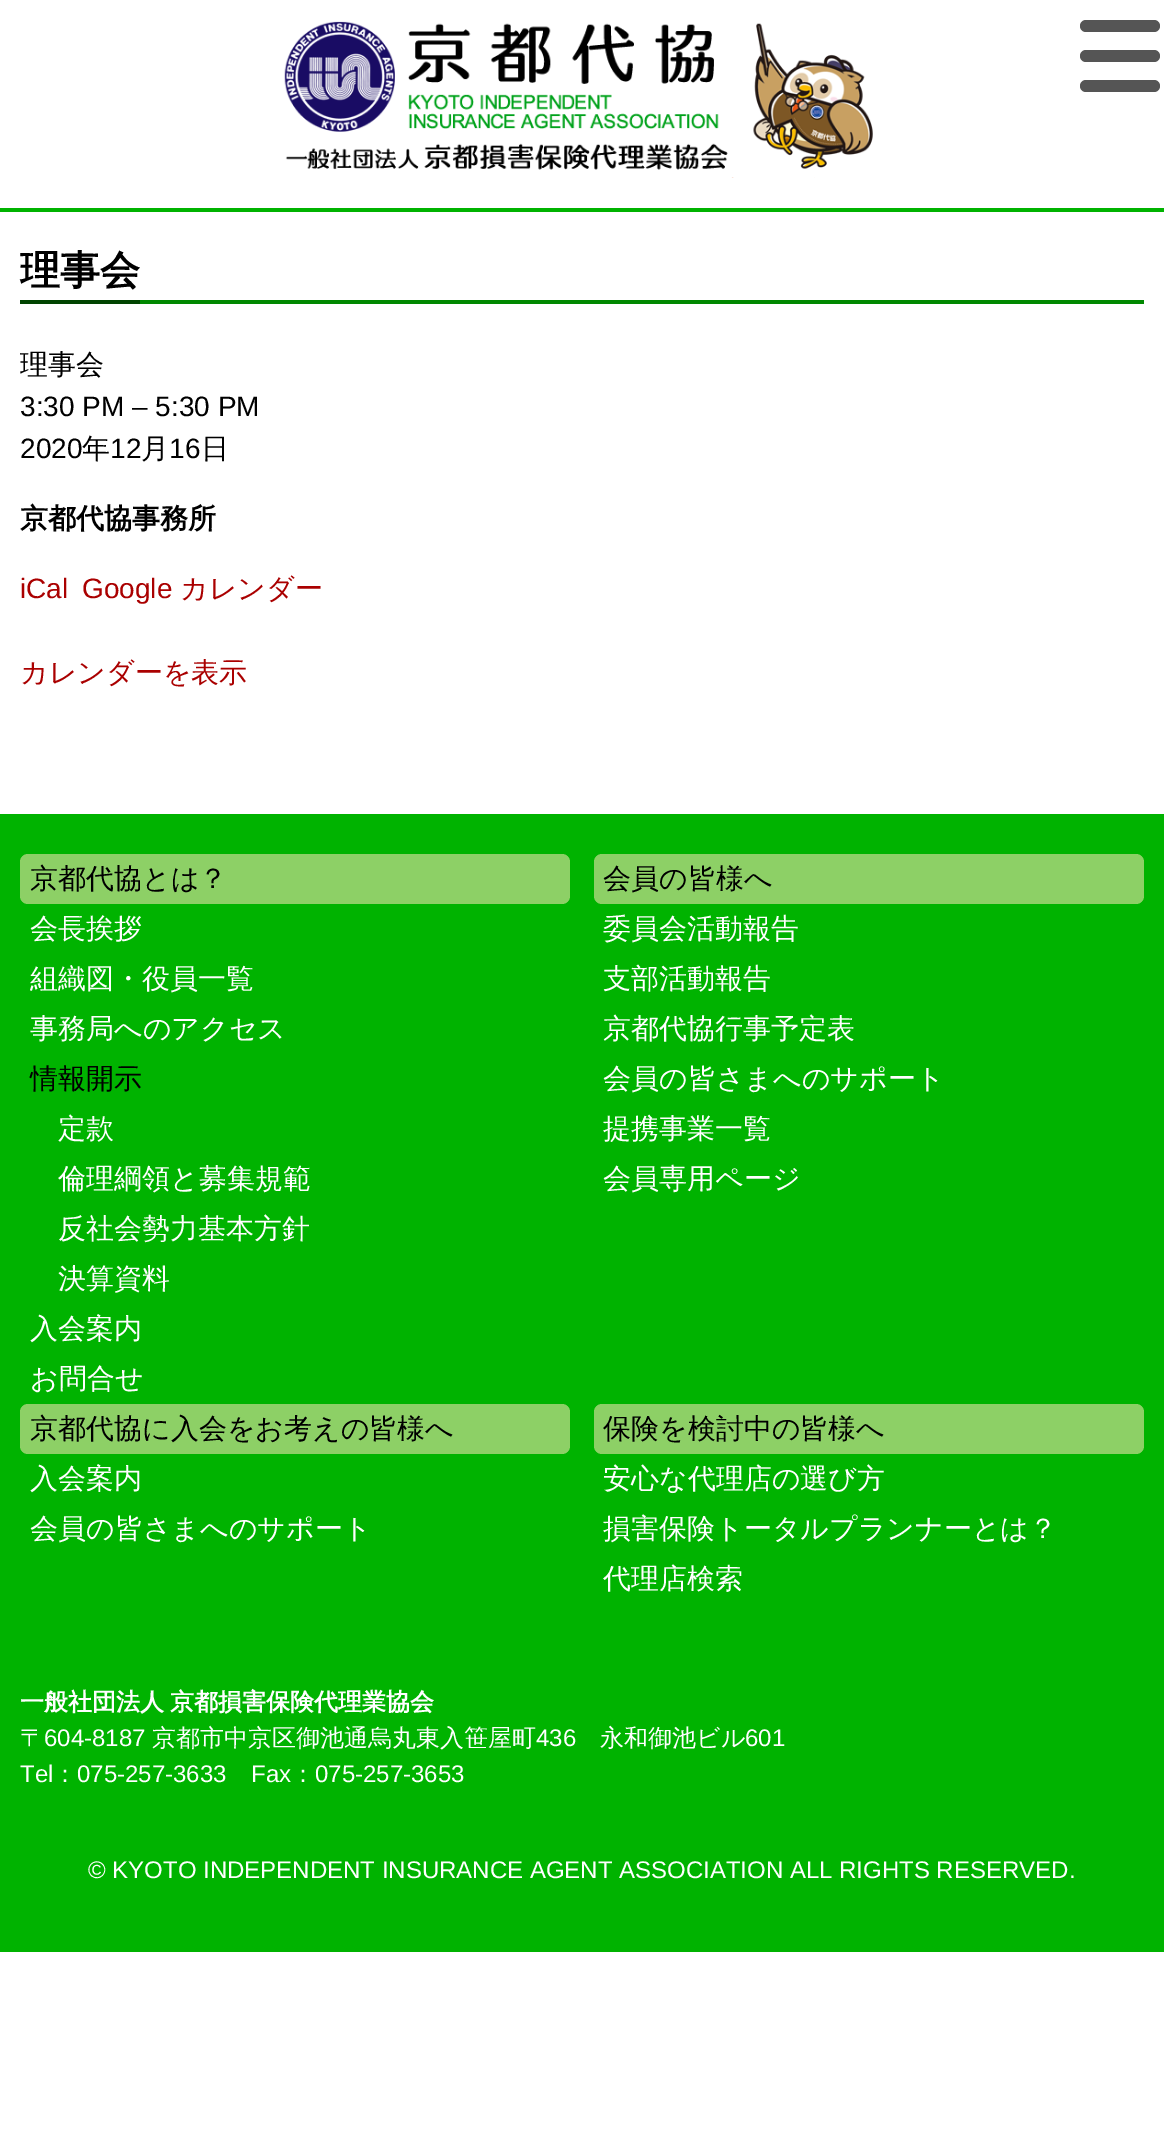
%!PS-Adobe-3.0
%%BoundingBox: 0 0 1164 2129
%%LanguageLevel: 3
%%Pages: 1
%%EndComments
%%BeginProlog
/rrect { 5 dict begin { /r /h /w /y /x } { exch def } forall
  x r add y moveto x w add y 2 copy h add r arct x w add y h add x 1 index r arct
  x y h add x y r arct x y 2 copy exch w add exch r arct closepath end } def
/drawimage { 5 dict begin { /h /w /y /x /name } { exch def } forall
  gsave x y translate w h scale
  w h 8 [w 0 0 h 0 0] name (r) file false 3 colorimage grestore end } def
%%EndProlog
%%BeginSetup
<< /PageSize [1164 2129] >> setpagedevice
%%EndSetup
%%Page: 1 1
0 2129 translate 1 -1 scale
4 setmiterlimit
1 setgray
0 0 1164 2129 rectfill
0 0.702 0 setrgbcolor
0 208 1164 4 rectfill
(images/1.raw) 284 21 589 157 drawimage
0.333 setgray
1080 20 80 12 6 rrect fill
1080 50 80 12 6 rrect fill
1080 80 80 12 6 rrect fill
0 0.533 0 setrgbcolor
140 300 1004 4 rectfill
0 0.267 0 setrgbcolor
20 300 120 4 rectfill
0 0.702 0 setrgbcolor
0 814 1164 1138 rectfill
0.553 0.816 0.4 setrgbcolor
20 854 550 50 8 rrect fill
594 854 550 50 8 rrect fill
20 1404 550 50 8 rrect fill
594 1404 550 50 8 rrect fill
/WenQuanYiZenHei-Bold [40 0 0 -40 0 0] selectfont
0 setgray
20 284 moveto (理事会) show
/WenQuanYiZenHei-Medium [28 0 0 -28 0 0] selectfont
20 374 moveto (理事会) show
/LiberationSans-Regular [28 0 0 -28 0 0] selectfont
20 416 moveto (3:30 PM – 5:30 PM) show
20 458 moveto (2020) show
/WenQuanYiZenHei-Medium [28 0 0 -28 0 0] selectfont
82 458 moveto (年) show
/LiberationSans-Regular [28 0 0 -28 0 0] selectfont
110 458 moveto (12) show
/WenQuanYiZenHei-Medium [28 0 0 -28 0 0] selectfont
141 458 moveto (月) show
/LiberationSans-Regular [28 0 0 -28 0 0] selectfont
169 458 moveto (16) show
/WenQuanYiZenHei-Medium [28 0 0 -28 0 0] selectfont
201 458 moveto (日) show
/WenQuanYiZenHei-Bold [28 0 0 -28 0 0] selectfont
20 528 moveto (京都代協事務所) show
/LiberationSans-Regular [28 0 0 -28 0 0] selectfont
0.667 0 0 setrgbcolor
20 598 moveto (iCal) show
82 598 moveto (Google) show
/WenQuanYiZenHei-Medium [28 0 0 -28 0 0] selectfont
180 598 moveto (カレンダー) show
20 682 moveto (カレンダーを表示) show
0 setgray
30 888 moveto (京都代協とは？) show
1 setgray
30 938 moveto (会長挨拶) show
30 988 moveto (組織図・役員一覧) show
30 1038 moveto (事務局へのアクセス) show
0 setgray
30 1088 moveto (情報開示) show
1 setgray
58 1138 moveto (定款) show
58 1188 moveto (倫理綱領と募集規範) show
58 1238 moveto (反社会勢力基本方針) show
58 1288 moveto (決算資料) show
30 1338 moveto (入会案内) show
30 1388 moveto (お問合せ) show
0 setgray
603 888 moveto (会員の皆様へ) show
1 setgray
603 938 moveto (委員会活動報告) show
603 988 moveto (支部活動報告) show
603 1038 moveto (京都代協行事予定表) show
603 1088 moveto (会員の皆さまへのサポート) show
603 1138 moveto (提携事業一覧) show
603 1188 moveto (会員専用ページ) show
0 setgray
30 1438 moveto (京都代協に入会をお考えの皆様へ) show
1 setgray
30 1488 moveto (入会案内) show
30 1538 moveto (会員の皆さまへのサポート) show
0 setgray
603 1438 moveto (保険を検討中の皆様へ) show
1 setgray
603 1488 moveto (安心な代理店の選び方) show
603 1538 moveto (損害保険トータルプランナーとは？) show
603 1588 moveto (代理店検索) show
/WenQuanYiZenHei-Bold [24 0 0 -24 0 0] selectfont
20 1710 moveto -1 0 32 (一般社団法人 京都損害保険代理業協会) widthshow
/WenQuanYiZenHei-Medium [24 0 0 -24 0 0] selectfont
20 1746 moveto (〒) show
/LiberationSans-Regular [24 0 0 -24 0 0] selectfont
44 1746 moveto (604-8187) show
/WenQuanYiZenHei-Medium [24 0 0 -24 0 0] selectfont
152 1746 moveto (京都市中京区御池通烏丸東入笹屋町) show
/LiberationSans-Regular [24 0 0 -24 0 0] selectfont
536 1746 moveto (436) show
/WenQuanYiZenHei-Medium [24 0 0 -24 0 0] selectfont
600 1746 moveto (永和御池ビル) show
/LiberationSans-Regular [24 0 0 -24 0 0] selectfont
745 1746 moveto (601) show
20 1782 moveto (Tel) show
/WenQuanYiZenHei-Medium [24 0 0 -24 0 0] selectfont
53 1782 moveto (：) show
/LiberationSans-Regular [24 0 0 -24 0 0] selectfont
77 1782 moveto (075-257-3633) show
251 1782 moveto (Fax) show
/WenQuanYiZenHei-Medium [24 0 0 -24 0 0] selectfont
291 1782 moveto (：) show
/LiberationSans-Regular [24 0 0 -24 0 0] selectfont
315 1782 moveto (075-257-3653) show
88 1878 moveto (© KYOTO INDEPENDENT INSURANCE AGENT ASSOCIATION ALL RIGHTS RESERVED.) show
showpage
%%EOF
